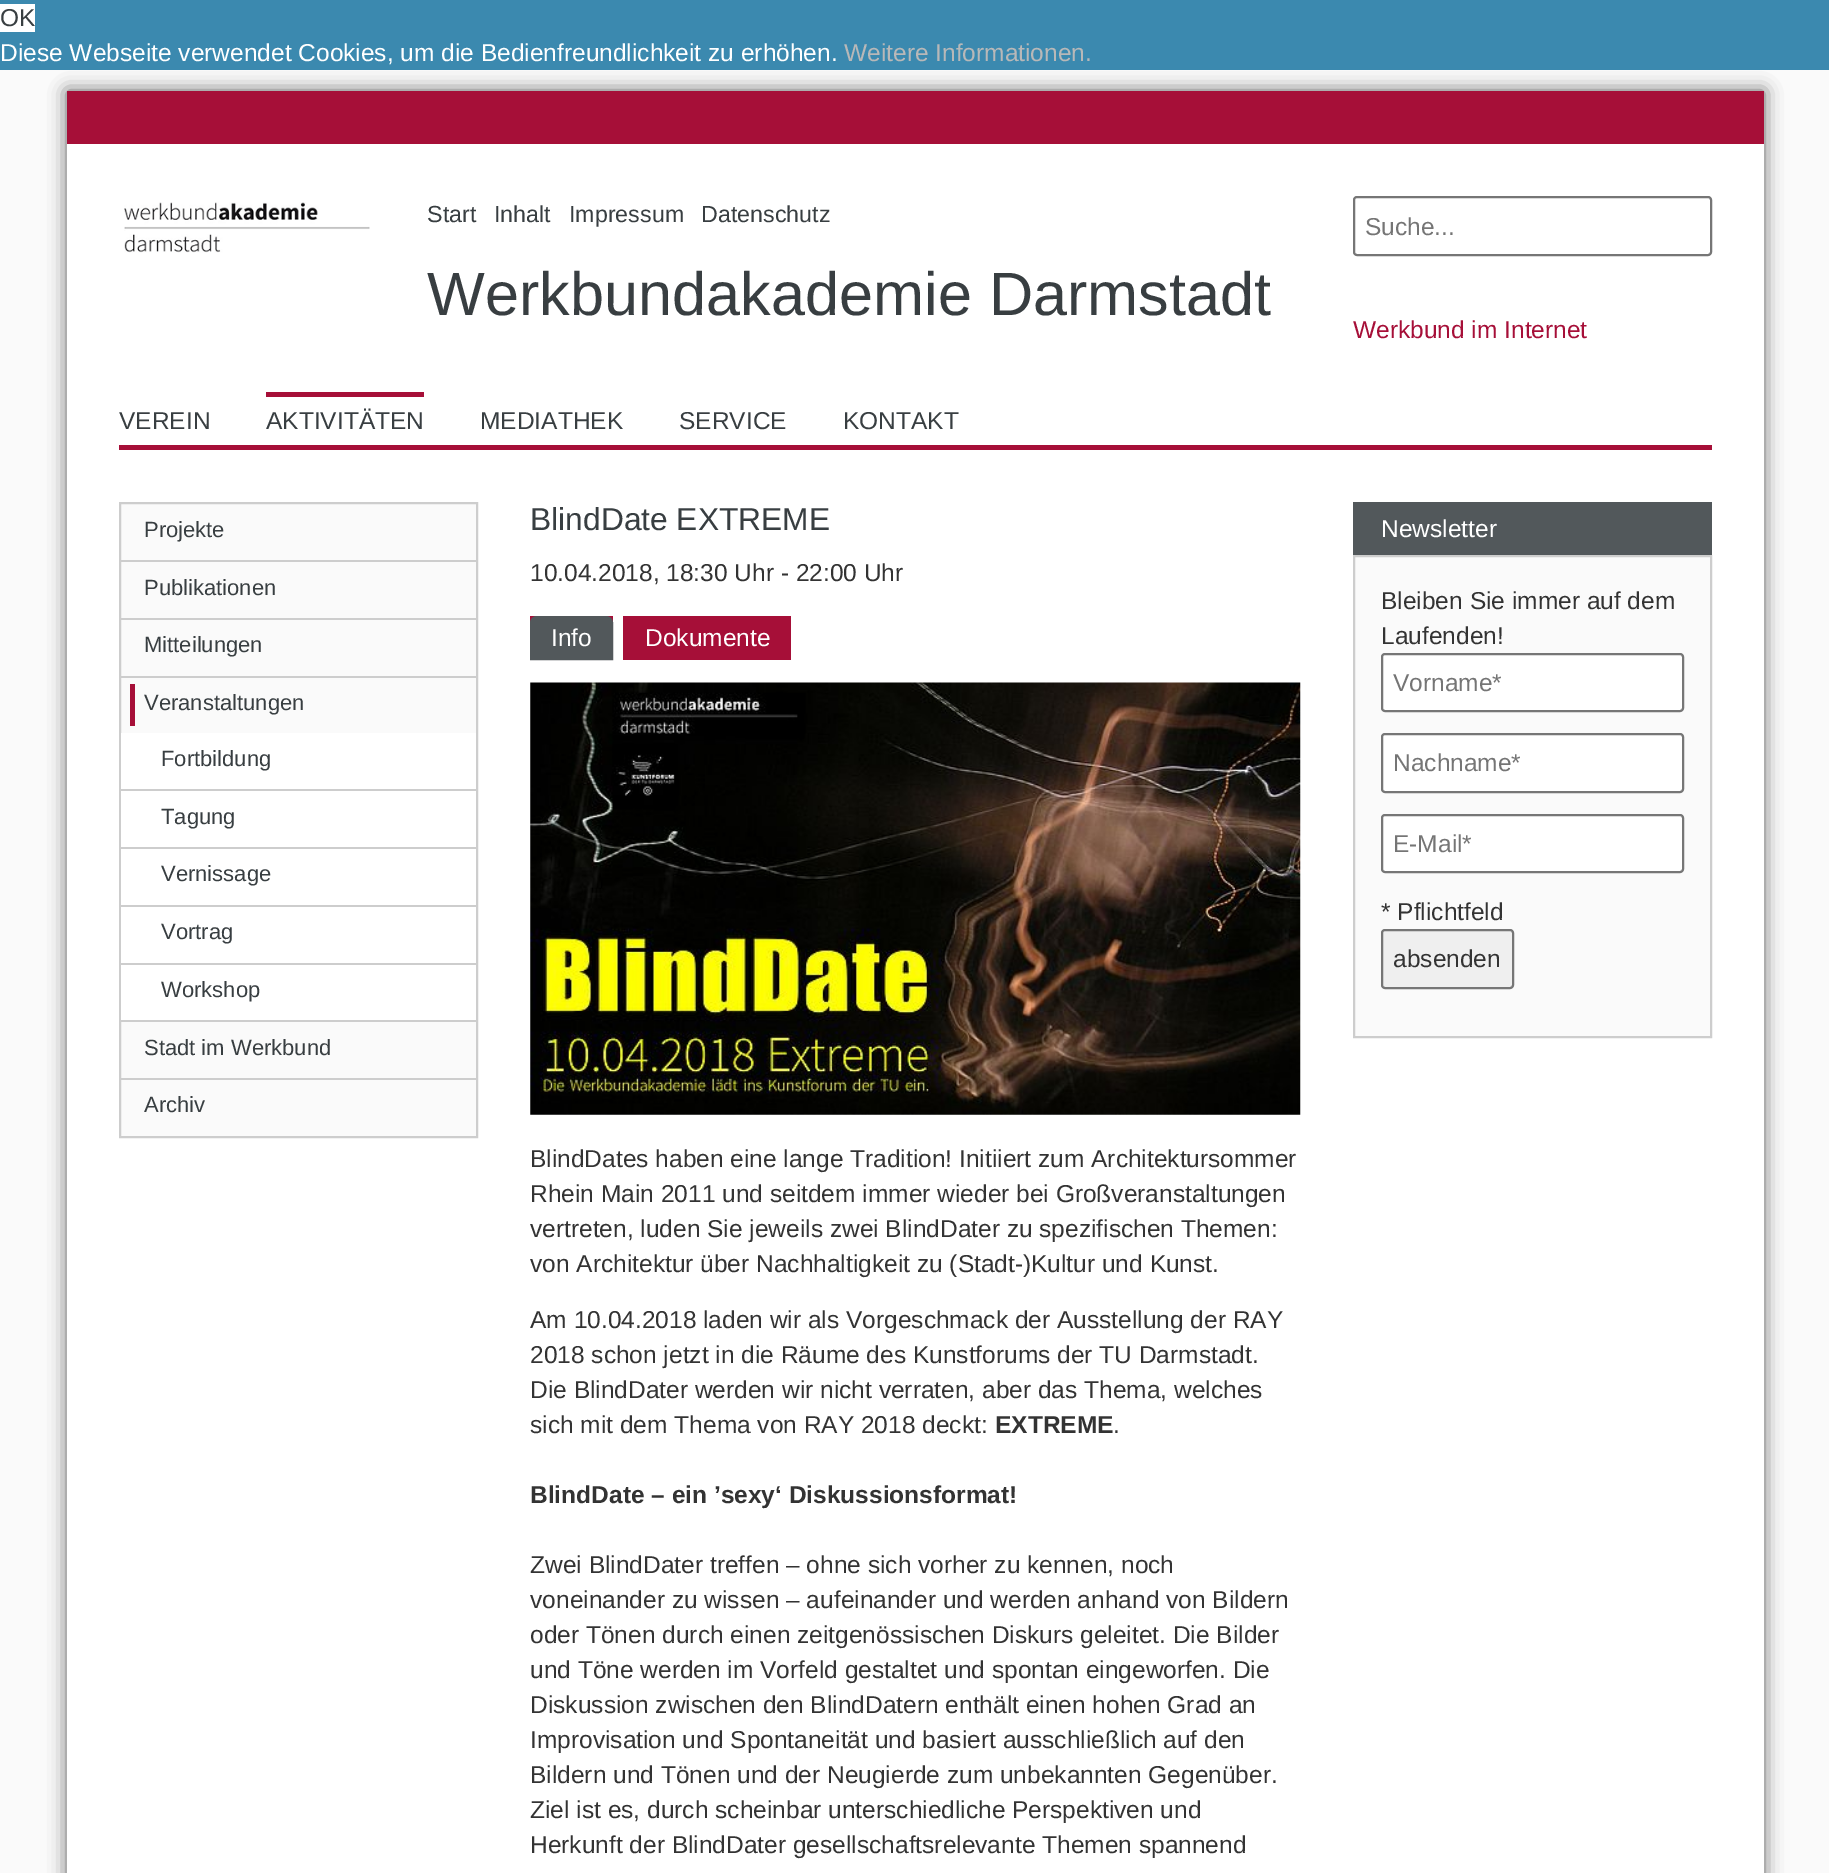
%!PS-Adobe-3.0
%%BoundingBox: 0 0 1829 1873
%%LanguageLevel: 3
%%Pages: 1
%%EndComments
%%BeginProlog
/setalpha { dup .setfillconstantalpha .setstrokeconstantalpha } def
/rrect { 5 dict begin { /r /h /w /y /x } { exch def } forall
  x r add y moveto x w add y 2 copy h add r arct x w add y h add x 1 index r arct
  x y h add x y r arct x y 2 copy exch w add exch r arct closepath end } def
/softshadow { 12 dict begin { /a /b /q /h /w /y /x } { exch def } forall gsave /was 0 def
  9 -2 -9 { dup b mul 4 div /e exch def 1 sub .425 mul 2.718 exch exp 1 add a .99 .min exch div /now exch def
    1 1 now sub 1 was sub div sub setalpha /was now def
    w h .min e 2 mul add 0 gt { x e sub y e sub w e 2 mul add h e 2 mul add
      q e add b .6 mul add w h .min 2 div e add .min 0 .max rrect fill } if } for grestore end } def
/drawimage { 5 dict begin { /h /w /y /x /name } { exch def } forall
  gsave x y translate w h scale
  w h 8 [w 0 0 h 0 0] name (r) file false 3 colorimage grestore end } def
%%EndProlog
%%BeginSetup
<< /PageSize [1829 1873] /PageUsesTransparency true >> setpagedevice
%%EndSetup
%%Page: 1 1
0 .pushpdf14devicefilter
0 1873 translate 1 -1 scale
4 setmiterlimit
0.98 setgray
0 0 1829 1873 rectfill
0.231 0.537 0.686 setrgbcolor
0 0 1829 70 rectfill
1 setgray
0 4 35 28 rectfill
0.365 setgray
67 91 1697 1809 0 9 1 softshadow
1 setgray
67 144 1697 1729 rectfill
0.651 0.059 0.22 setrgbcolor
67 91 1697 53 rectfill
(images/1.raw) 124 202 246 51 drawimage
0.463 setgray
2 setlinewidth
1354 197 357 58 3 rrect stroke
0.651 0.059 0.22 setrgbcolor
119 445 1593 5 rectfill
266 392 158 5 rectfill
0.98 setgray
newpath 120 503 moveto 477 503 lineto 477 1137 lineto 120 1137 lineto closepath gsave fill grestore
0.804 setgray
stroke
121 560 355 2 rectfill
121 618 355 2 rectfill
121 676 355 2 rectfill
0.651 0.059 0.22 setrgbcolor
130 684 5 42 rectfill
1 setgray
121 733 355 287 rectfill
0.804 setgray
121 789 355 2 rectfill
121 847 355 2 rectfill
121 905 355 2 rectfill
121 963 355 2 rectfill
121 1020 355 2 rectfill
121 1078 355 2 rectfill
0.651 0.059 0.22 setrgbcolor
530 616 83 7 rectfill
0.322 0.345 0.357 setrgbcolor
newpath 537 617 moveto 606 617 lineto 609.5 617 612 619.5 612 623 curveto 612 659 lineto 531 659 lineto 531 623 lineto 531 619.5 533.5 617 537 617 curveto closepath gsave fill grestore
stroke
0.651 0.059 0.22 setrgbcolor
623 616 168 44 rectfill
(images/2.raw) 530 682 771 433 drawimage
0.322 0.345 0.357 setrgbcolor
1353 502 359 53 rectfill
0.98 setgray
newpath 1354 556 moveto 1711 556 lineto 1711 1037 lineto 1354 1037 lineto closepath gsave fill grestore
0.804 setgray
stroke
1 setgray
1382 654 301 57 3 rrect gsave fill grestore
0.463 setgray
stroke
1 setgray
1382 734 301 58 3 rrect gsave fill grestore
0.463 setgray
stroke
1 setgray
1382 815 301 57 3 rrect gsave fill grestore
0.463 setgray
stroke
0.937 setgray
1382 930 131 58 3 rrect gsave fill grestore
0.463 setgray
stroke
/LiberationSans-Regular [24.5 0 0 -24.5 0 0] selectfont
0.22 0.243 0.255 setrgbcolor
0 26 moveto (OK) show
1 setgray
0 61 moveto (Diese Webseite verwendet Cookies, um die Bedienfreundlichkeit zu erhöhen.) show
0.722 setgray
844 61 moveto (Weitere Informationen.) show
/LiberationSans-Regular [23.25 0 0 -23.25 0 0] selectfont
0.22 0.243 0.255 setrgbcolor
427 222 moveto (Start) show
494 222 moveto (Inhalt) show
569 222 moveto (Impressum) show
701 222 moveto (Datenschutz) show
/LiberationSans-Regular [61.25 0 0 -61.25 0 0] selectfont
427 315 moveto (Werkbundakademie Darmstadt) show
/LiberationSans-Regular [24.5 0 0 -24.5 0 0] selectfont
0.459 setgray
1365 235 moveto (Suche...) show
0.651 0.059 0.22 setrgbcolor
1353 338 moveto (Werkbund im Internet) show
0.22 0.243 0.255 setrgbcolor
119 429 moveto (VEREIN) show
266 429 moveto (AKTIVITÄTEN) show
480 429 moveto (MEDIATHEK) show
679 429 moveto (SERVICE) show
843 429 moveto (KONTAKT) show
/LiberationSans-Regular [22 0 0 -22 0 0] selectfont
144 537 moveto (Projekte) show
144 595 moveto (Publikationen) show
144 652 moveto (Mitteilungen) show
144 710 moveto (Veranstaltungen) show
161 766 moveto (Fortbildung) show
161 824 moveto (Tagung) show
161 881 moveto (Vernissage) show
161 939 moveto (Vortrag) show
161 997 moveto (Workshop) show
144 1055 moveto (Stadt im Werkbund) show
144 1112 moveto (Archiv) show
/LiberationSans-Regular [31.75 0 0 -31.75 0 0] selectfont
530 530 moveto (BlindDate EXTREME) show
/LiberationSans-Regular [24.5 0 0 -24.5 0 0] selectfont
0.2 setgray
530 581 moveto (10.04.2018, 18:30 Uhr - 22:00 Uhr) show
1 setgray
551 646 moveto (Info) show
645 646 moveto (Dokumente) show
0.2 setgray
530 1167 moveto (BlindDates haben eine lange Tradition! Initiiert zum Architektursommer) show
530 1202 moveto (Rhein Main 2011 und seitdem immer wieder bei Großveranstaltungen) show
530 1237 moveto (vertreten, luden Sie jeweils zwei BlindDater zu spezifischen Themen:) show
530 1272 moveto (von Architektur über Nachhaltigkeit zu \(Stadt-\)Kultur und Kunst.) show
530 1328 moveto (Am 10.04.2018 laden wir als Vorgeschmack der Ausstellung der RAY) show
530 1363 moveto (2018 schon jetzt in die Räume des Kunstforums der TU Darmstadt.) show
530 1398 moveto (Die BlindDater werden wir nicht verraten, aber das Thema, welches) show
530 1433 moveto (sich mit dem Thema von RAY 2018 deckt:) show
/LiberationSans-Bold [24.5 0 0 -24.5 0 0] selectfont
995 1433 moveto (EXTREME) show
/LiberationSans-Regular [24.5 0 0 -24.5 0 0] selectfont
1113 1433 moveto (.) show
/LiberationSans-Bold [24.5 0 0 -24.5 0 0] selectfont
530 1503 moveto (BlindDate – ein ’sexy‘ Diskussionsformat!) show
/LiberationSans-Regular [24.5 0 0 -24.5 0 0] selectfont
530 1573 moveto (Zwei BlindDater treffen – ohne sich vorher zu kennen, noch) show
530 1608 moveto (voneinander zu wissen – aufeinander und werden anhand von Bildern) show
530 1643 moveto (oder Tönen durch einen zeitgenössischen Diskurs geleitet. Die Bilder) show
530 1678 moveto (und Töne werden im Vorfeld gestaltet und spontan eingeworfen. Die) show
530 1713 moveto (Diskussion zwischen den BlindDatern enthält einen hohen Grad an) show
530 1748 moveto (Improvisation und Spontaneität und basiert ausschließlich auf den) show
530 1783 moveto (Bildern und Tönen und der Neugierde zum unbekannten Gegenüber.) show
530 1818 moveto (Ziel ist es, durch scheinbar unterschiedliche Perspektiven und) show
530 1853 moveto (Herkunft der BlindDater gesellschaftsrelevante Themen spannend) show
1 setgray
1381 537 moveto (Newsletter) show
0.2 setgray
1381 609 moveto (Bleiben Sie immer auf dem) show
1381 644 moveto (Laufenden!) show
0.459 setgray
1393 691 moveto (Vorname*) show
1393 771 moveto (Nachname*) show
1393 852 moveto (E-Mail*) show
0.2 setgray
1381 920 moveto (* Pflichtfeld) show
1393 967 moveto (absenden) show
.poppdf14devicefilter showpage
%%EOF
